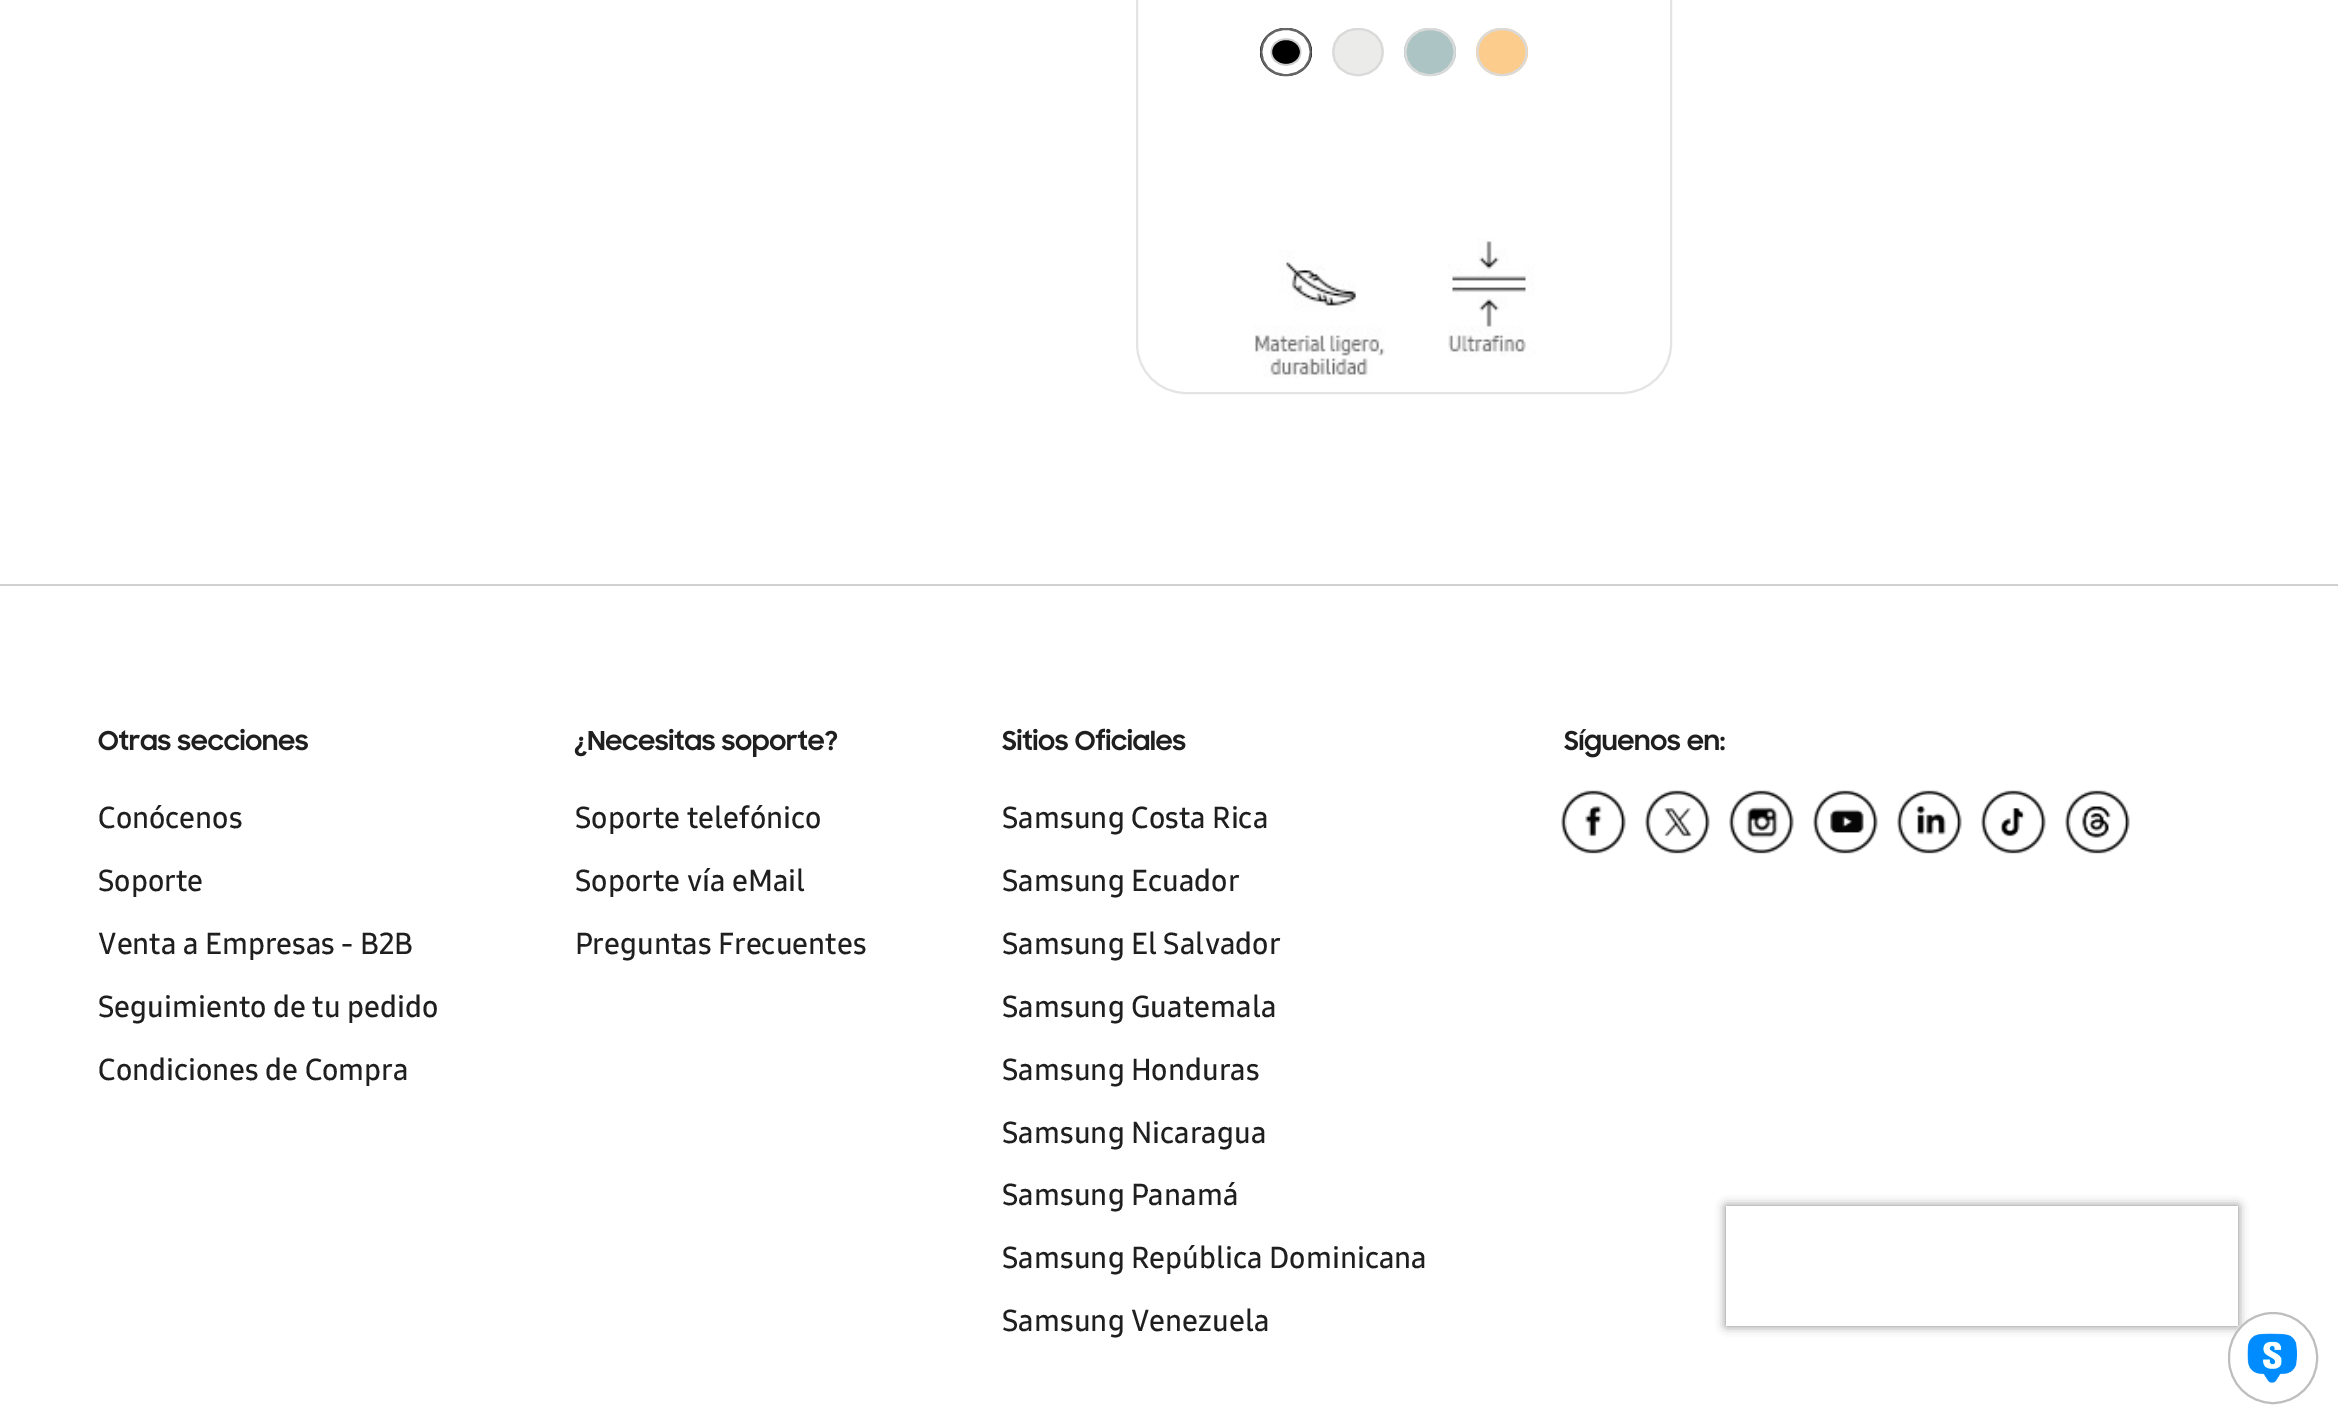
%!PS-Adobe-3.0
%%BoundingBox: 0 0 2338 1423
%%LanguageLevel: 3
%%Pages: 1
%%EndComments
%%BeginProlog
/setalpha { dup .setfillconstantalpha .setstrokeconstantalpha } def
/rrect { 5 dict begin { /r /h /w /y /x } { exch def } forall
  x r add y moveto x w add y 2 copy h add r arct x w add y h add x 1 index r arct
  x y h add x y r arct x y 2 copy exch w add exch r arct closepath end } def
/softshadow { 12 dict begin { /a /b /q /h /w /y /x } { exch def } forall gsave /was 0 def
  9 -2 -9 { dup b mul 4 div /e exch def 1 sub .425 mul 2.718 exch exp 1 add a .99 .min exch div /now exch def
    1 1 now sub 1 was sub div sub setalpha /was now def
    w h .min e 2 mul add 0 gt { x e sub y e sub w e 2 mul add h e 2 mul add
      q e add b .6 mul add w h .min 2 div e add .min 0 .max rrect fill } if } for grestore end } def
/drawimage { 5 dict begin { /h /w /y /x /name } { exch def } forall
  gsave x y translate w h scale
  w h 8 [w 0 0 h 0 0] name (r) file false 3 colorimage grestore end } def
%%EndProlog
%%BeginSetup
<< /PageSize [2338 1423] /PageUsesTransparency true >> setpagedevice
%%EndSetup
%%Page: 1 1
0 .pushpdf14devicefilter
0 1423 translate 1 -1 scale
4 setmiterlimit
1 setgray
0 0 2338 1423 rectfill
0.816 setgray
0 584 2338 2 rectfill
(images/1.raw) 1564 729 161 29 drawimage
(images/2.raw) 1561 790 65 64 drawimage
(images/3.raw) 1645 790 65 64 drawimage
(images/4.raw) 1729 790 65 64 drawimage
(images/5.raw) 1813 790 65 64 drawimage
(images/6.raw) 1897 790 65 64 drawimage
(images/7.raw) 1981 790 65 64 drawimage
(images/8.raw) 2065 790 65 64 drawimage
(images/9.raw) 98 728 210 23 drawimage
(images/10.raw) 574 728 264 29 drawimage
(images/11.raw) 1002 728 184 23 drawimage
gsave
newpath 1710 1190 moveto 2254 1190 lineto 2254 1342 lineto 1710 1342 lineto closepath 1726 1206 moveto 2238 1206 lineto 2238 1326 lineto 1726 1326 lineto closepath eoclip newpath
0.502 setgray
1726 1206 512 120 0 5 1 softshadow
grestore
0.894 setgray
2 setlinewidth
1137 -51 534 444 49 rrect stroke
0 setgray
newpath 1286 28 moveto 1300.5 28 1312 38.5 1312 52 curveto 1312 65.5 1300.5 76 1286 76 curveto 1271.5 76 1260 65.5 1260 52 curveto 1260 38.5 1271.5 28 1286 28 curveto closepath fill
0.8 setgray
10 setlinewidth
newpath 1286 35 moveto 1296.5 35 1305 42.5 1305 52 curveto 1305 61.5 1296.5 69 1286 69 curveto 1275.5 69 1267 61.5 1267 52 curveto 1267 42.5 1275.5 35 1286 35 curveto closepath stroke
1 setgray
8 setlinewidth
newpath 1286 34 moveto 1312.5 34 1312.5 70 1286 70 curveto 1259.5 70 1259.5 34 1286 34 curveto closepath stroke
0.4 setgray
2 setlinewidth
newpath 1286 29 moveto 1319 29 1319 75 1286 75 curveto 1253 75 1253 29 1286 29 curveto closepath stroke
0.922 0.922 0.914 setrgbcolor
newpath 1358 28 moveto 1372.5 28 1384 38.5 1384 52 curveto 1384 65.5 1372.5 76 1358 76 curveto 1343.5 76 1332 65.5 1332 52 curveto 1332 38.5 1343.5 28 1358 28 curveto closepath fill
0.855 setgray
newpath 1358 29 moveto 1391 29 1391 75 1358 75 curveto 1325 75 1325 29 1358 29 curveto closepath stroke
0.675 0.769 0.769 setrgbcolor
newpath 1430 28 moveto 1444.5 28 1456 38.5 1456 52 curveto 1456 65.5 1444.5 76 1430 76 curveto 1415.5 76 1404 65.5 1404 52 curveto 1404 38.5 1415.5 28 1430 28 curveto closepath fill
0.855 setgray
newpath 1430 29 moveto 1463 29 1463 75 1430 75 curveto 1397 75 1397 29 1430 29 curveto closepath stroke
0.988 0.8 0.549 setrgbcolor
newpath 1502 28 moveto 1516.5 28 1528 38.5 1528 52 curveto 1528 65.5 1516.5 76 1502 76 curveto 1487.5 76 1476 65.5 1476 52 curveto 1476 38.5 1487.5 28 1502 28 curveto closepath fill
0.855 setgray
newpath 1502 29 moveto 1535 29 1535 75 1502 75 curveto 1469 75 1469 29 1502 29 curveto closepath stroke
(images/12.raw) 1254 250 131 128 drawimage
(images/13.raw) 1448 238 87 119 drawimage
1 setgray
2228 1312 90 92 45 rrect fill
(images/14.raw) 2247 1333 50 50 drawimage
0.745 setgray
2229 1313 88 90 44 rrect stroke
/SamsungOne-SemiBold [30 0 0 -30 0 0] selectfont
0.122 setgray
98 828 moveto (Conócenos) show
98 891 moveto (Soporte) show
98 954 moveto (Venta a Empresas - B2B) show
98 1017 moveto (Seguimiento de tu pedido) show
98 1080 moveto (Condiciones de Compra) show
575 828 moveto (Soporte telefónico) show
575 891 moveto (Soporte vía eMail) show
575 954 moveto (Preguntas Frecuentes) show
1002 828 moveto (Samsung Costa Rica) show
1002 891 moveto (Samsung Ecuador) show
1002 954 moveto (Samsung El Salvador) show
1002 1017 moveto (Samsung Guatemala) show
1002 1080 moveto (Samsung Honduras) show
1002 1143 moveto (Samsung Nicaragua) show
1002 1205 moveto (Samsung Panamá) show
1002 1268 moveto (Samsung República Dominicana) show
1002 1331 moveto (Samsung Venezuela) show
.poppdf14devicefilter showpage
%%EOF
